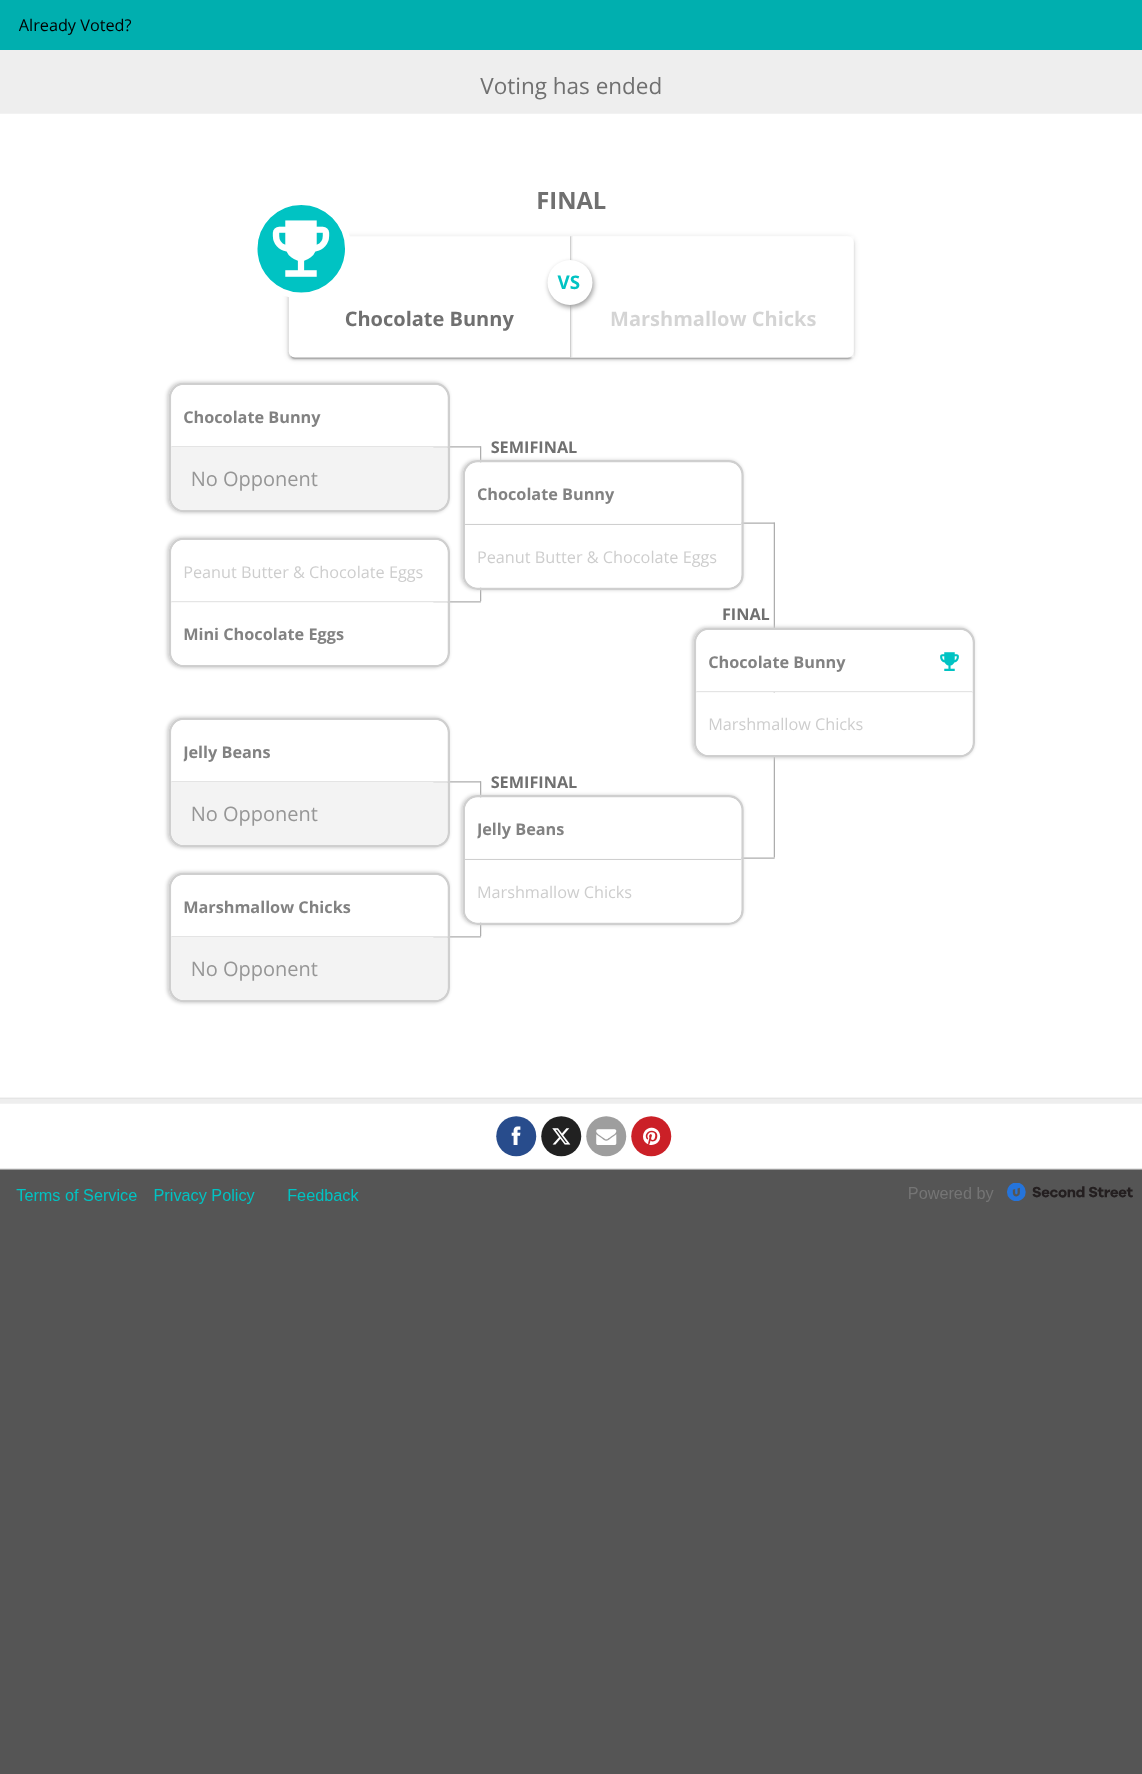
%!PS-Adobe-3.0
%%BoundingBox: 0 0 1142 1774
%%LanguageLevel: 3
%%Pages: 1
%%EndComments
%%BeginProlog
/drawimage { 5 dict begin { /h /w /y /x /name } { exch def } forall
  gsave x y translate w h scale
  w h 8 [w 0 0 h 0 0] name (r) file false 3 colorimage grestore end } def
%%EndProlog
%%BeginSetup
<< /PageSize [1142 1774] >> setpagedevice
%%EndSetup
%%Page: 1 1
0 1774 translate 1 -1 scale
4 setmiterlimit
0.333 setgray
0 0 1142 1774 rectfill
(images/1.raw) 0 0 1142 1204 drawimage
showpage
%%EOF
